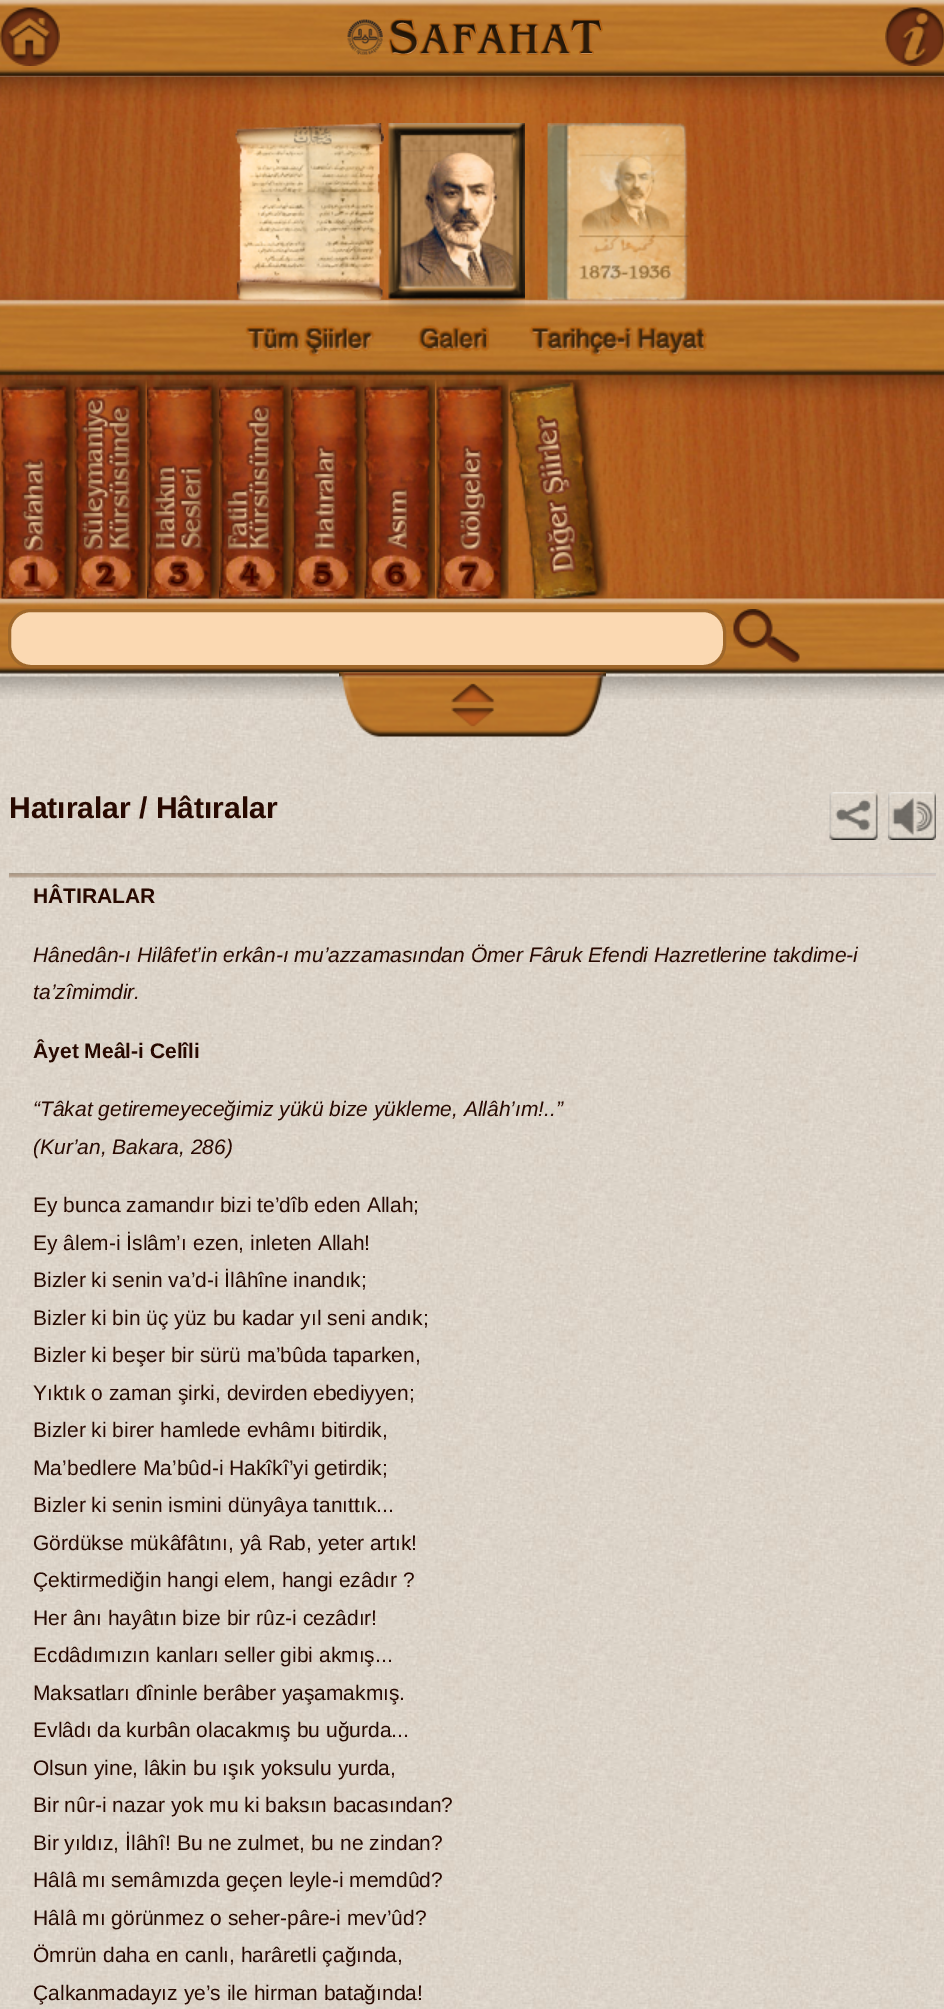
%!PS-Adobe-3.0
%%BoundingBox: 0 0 944 2009
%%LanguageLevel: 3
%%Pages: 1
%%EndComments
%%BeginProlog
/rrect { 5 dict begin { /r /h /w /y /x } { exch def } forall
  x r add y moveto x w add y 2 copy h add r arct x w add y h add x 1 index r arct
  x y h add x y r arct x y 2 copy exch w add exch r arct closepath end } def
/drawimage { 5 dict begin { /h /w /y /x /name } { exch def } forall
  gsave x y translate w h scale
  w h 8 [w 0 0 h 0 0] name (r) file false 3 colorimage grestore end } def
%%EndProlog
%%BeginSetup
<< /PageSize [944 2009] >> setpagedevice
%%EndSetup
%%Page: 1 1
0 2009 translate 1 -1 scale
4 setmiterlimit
1 setgray
0 0 944 2009 rectfill
(images/1.raw) 0 76 944 1933 drawimage
(images/2.raw) 0 0 944 77 drawimage
(images/3.raw) 0 7 60 59 drawimage
(images/4.raw) 347 18 256 38 drawimage
(images/5.raw) 885 7 59 59 drawimage
(images/6.raw) 0 76 944 598 drawimage
(images/7.raw) 235 123 149 234 drawimage
(images/8.raw) 388 123 137 229 drawimage
(images/9.raw) 529 123 178 234 drawimage
(images/10.raw) 1 379 73 220 drawimage
(images/11.raw) 73 379 73 220 drawimage
(images/12.raw) 147 379 72 220 drawimage
(images/13.raw) 219 379 72 220 drawimage
(images/14.raw) 291 379 72 220 drawimage
(images/15.raw) 363 379 72 220 drawimage
(images/16.raw) 436 379 73 220 drawimage
(images/17.raw) 508 379 100 220 drawimage
0.984 0.851 0.698 setrgbcolor
9.5 610.5 715 56 21.5 rrect gsave fill grestore
0.624 0.404 0.165 setrgbcolor
3 setlinewidth
stroke
(images/18.raw) 733 609 67 54 drawimage
(images/20.raw) 0 676 944 23 drawimage
(images/19.raw) 339 672 267 65 drawimage
(images/21.raw) 9 873 927 5 drawimage
(images/22.raw) 829 792 49 48 drawimage
(images/23.raw) 888 792 48 48 drawimage
/LiberationSans-Bold [30 0 0 -30 0 0] selectfont
0.157 0.035 0 setrgbcolor
9 818 moveto (Hatıralar / Hâtıralar) show
/LiberationSans-Bold [21 0 0 -21 0 0] selectfont
33 903 moveto (HÂTIRALAR) show
/LiberationSans-Italic [21 0 0 -21 0 0] selectfont
33 962 moveto (Hânedân-ı Hilâfet’in erkân-ı mu’azzamasından Ömer Fâruk Efendi Hazretlerine takdime-i) show
33 999 moveto (ta’zîmimdir.) show
/LiberationSans-Bold [21 0 0 -21 0 0] selectfont
33 1058 moveto (Âyet Meâl-i Celîli) show
/LiberationSans-Italic [21 0 0 -21 0 0] selectfont
33 1116 moveto (“Tâkat getiremeyeceğimiz yükü bize yükleme, Allâh’ım!..”) show
33 1154 moveto (\(Kur’an, Bakara, 286\)) show
/LiberationSans-Regular [21 0 0 -21 0 0] selectfont
33 1212 moveto (Ey bunca zamandır bizi te’dîb eden Allah;) show
33 1250 moveto (Ey âlem-i İslâm’ı ezen, inleten Allah!) show
33 1287 moveto (Bizler ki senin va’d-i İlâhîne inandık;) show
33 1325 moveto (Bizler ki bin üç yüz bu kadar yıl seni andık;) show
33 1362 moveto (Bizler ki beşer bir sürü ma’bûda taparken,) show
33 1400 moveto (Yıktık o zaman şirki, devirden ebediyyen;) show
33 1437 moveto (Bizler ki birer hamlede evhâmı bitirdik,) show
33 1475 moveto (Ma’bedlere Ma’bûd-i Hakîkî’yi getirdik;) show
33 1512 moveto (Bizler ki senin ismini dünyâya tanıttık...) show
33 1550 moveto (Gördükse mükâfâtını, yâ Rab, yeter artık!) show
33 1587 moveto (Çektirmediğin hangi elem, hangi ezâdır ?) show
33 1625 moveto (Her ânı hayâtın bize bir rûz-i cezâdır!) show
33 1662 moveto (Ecdâdımızın kanları seller gibi akmış...) show
33 1700 moveto (Maksatları dîninle berâber yaşamakmış.) show
33 1737 moveto (Evlâdı da kurbân olacakmış bu uğurda...) show
33 1775 moveto (Olsun yine, lâkin bu ışık yoksulu yurda,) show
33 1812 moveto (Bir nûr-i nazar yok mu ki baksın bacasından?) show
33 1850 moveto (Bir yıldız, İlâhî! Bu ne zulmet, bu ne zindan?) show
33 1887 moveto (Hâlâ mı semâmızda geçen leyle-i memdûd?) show
33 1925 moveto (Hâlâ mı görünmez o seher-pâre-i mev’ûd?) show
33 1962 moveto (Ömrün daha en canlı, harâretli çağında,) show
33 2000 moveto (Çalkanmadayız ye’s ile hirman batağında!) show
showpage
%%EOF
